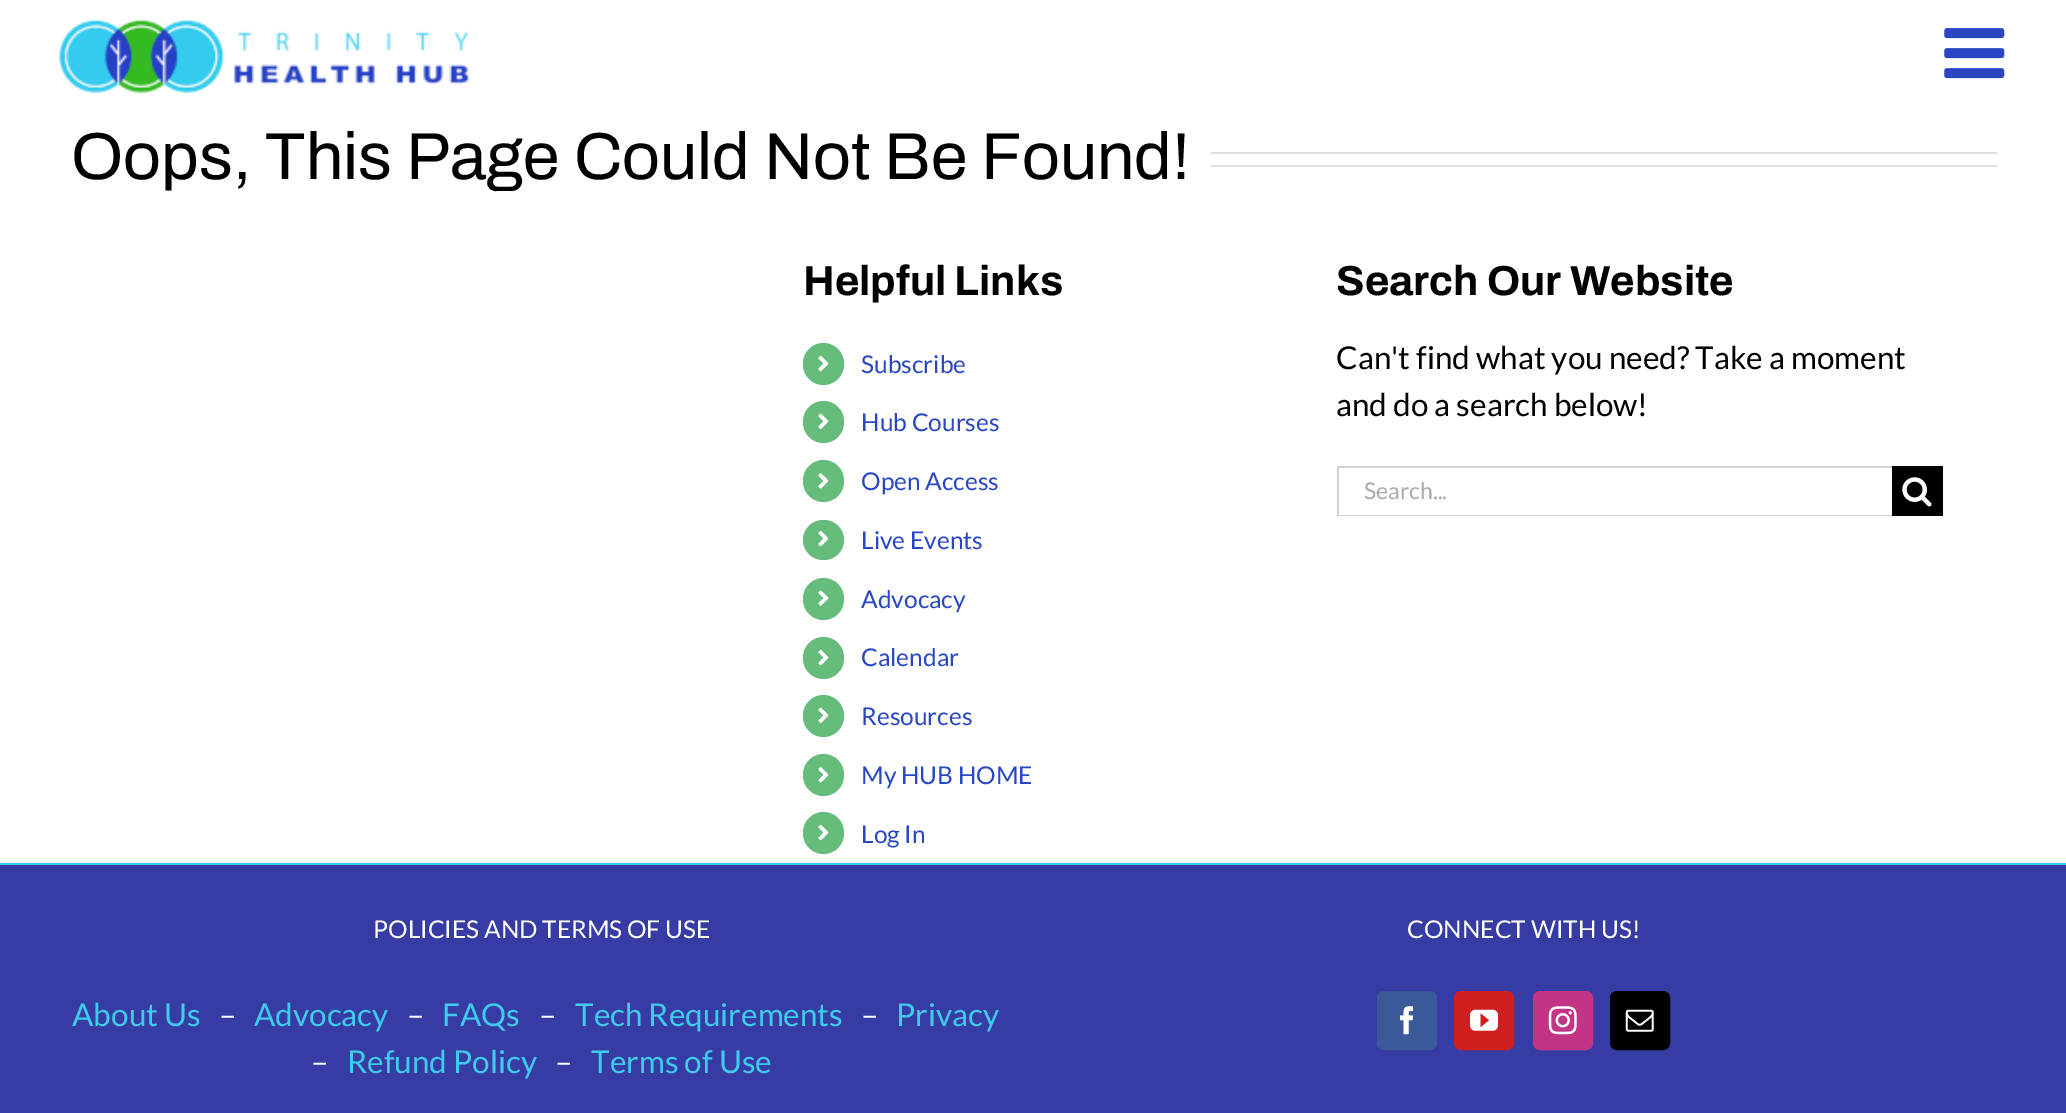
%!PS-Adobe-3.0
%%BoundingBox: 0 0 2066 1113
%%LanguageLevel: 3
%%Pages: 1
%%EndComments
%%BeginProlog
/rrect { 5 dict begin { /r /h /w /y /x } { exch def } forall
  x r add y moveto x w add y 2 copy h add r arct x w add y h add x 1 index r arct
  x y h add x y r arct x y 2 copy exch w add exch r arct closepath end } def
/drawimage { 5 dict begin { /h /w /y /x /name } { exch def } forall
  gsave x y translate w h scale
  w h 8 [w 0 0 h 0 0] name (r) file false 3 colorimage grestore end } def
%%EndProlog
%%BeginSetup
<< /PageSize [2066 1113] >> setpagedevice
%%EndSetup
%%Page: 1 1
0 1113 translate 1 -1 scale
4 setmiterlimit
1 setgray
0 0 2066 1113 rectfill
(images/1.raw) 59 19 411 75 drawimage
(images/2.raw) 1944 28 61 51 drawimage
0.878 0.871 0.871 setrgbcolor
1211 152 786 2 rectfill
1211 165 786 2 rectfill
0.396 0.737 0.482 setrgbcolor
803 343 41 42 20.5 rrect fill
(images/3.raw) 818 355 11 17 drawimage
803 401 41 42 20.5 rrect fill
(images/4.raw) 818 413 11 16 drawimage
803 460 41 42 20.5 rrect fill
(images/5.raw) 818 473 11 16 drawimage
803 520 41 40 20 rrect fill
(images/3.raw) 818 530 11 17 drawimage
803 578 41 42 20.5 rrect fill
(images/6.raw) 818 590 11 16 drawimage
803 637 41 42 20.5 rrect fill
(images/3.raw) 818 649 11 17 drawimage
803 695 41 42 20.5 rrect fill
(images/4.raw) 818 707 11 16 drawimage
803 754 41 42 20.5 rrect fill
(images/5.raw) 818 767 11 16 drawimage
803 812 41 42 20.5 rrect fill
(images/3.raw) 818 824 11 17 drawimage
0.824 setgray
1337 466 555 2 rectfill
1337 515 555 1 rectfill
1337 466 2 50 rectfill
0 setgray
1892 466 51 50 rectfill
(images/7.raw) 1902 477 30 30 drawimage
0.216 0.235 0.643 setrgbcolor
0 865 2066 248 rectfill
0.247 0.796 0.922 setrgbcolor
0 863 2066 2 rectfill
0.231 0.349 0.596 setrgbcolor
1378 992 58 57 6 rrect gsave fill grestore
2 setlinewidth
stroke
(images/8.raw) 1400 1006 14 29 drawimage
0.804 0.125 0.122 setrgbcolor
1455 992 58 57 6 rrect gsave fill grestore
stroke
(images/9.raw) 1470 1009 28 22 drawimage
0.757 0.208 0.518 setrgbcolor
1534 992 58 57 6 rrect gsave fill grestore
stroke
(images/10.raw) 1548 1006 29 29 drawimage
0 setgray
1611 992 58 57 6 rrect gsave fill grestore
stroke
(images/11.raw) 1625 1009 29 23 drawimage
/Archivo-Regular [66.5 0 0 -66.5 0 0] selectfont
71 179 moveto (Oops, This Page Could Not Be Found!) show
/Archivo-Bold [42 0 0 -42 0 0] selectfont
803 295 moveto (Helpful Links) show
/Lato-Regular [24.5 0 0 -24.5 0 0] selectfont
0.161 0.278 0.761 setrgbcolor
861 373 moveto (Subscribe) show
861 431 moveto (Hub Courses) show
861 490 moveto (Open Access) show
861 549 moveto (Live Events) show
861 608 moveto (Advocacy) show
861 666 moveto (Calendar) show
861 725 moveto (Resources) show
861 784 moveto (My HUB HOME) show
861 843 moveto (Log In) show
/Archivo-Bold [42 0 0 -42 0 0] selectfont
0 setgray
1336 295 moveto (Search Our Website) show
/Lato-Regular [31.5 0 0 -31.5 0 0] selectfont
1336 369 moveto (Can't find what you need? Take a moment) show
1336 416 moveto (and do a search below!) show
/Lato-Regular [23 0 0 -23 0 0] selectfont
0.667 0.663 0.663 setrgbcolor
1364 499 moveto (Search...) show
/Lato-Regular [24.5 0 0 -24.5 0 0] selectfont
1 setgray
373 938 moveto (POLICIES AND TERMS OF USE) show
/Lato-Regular [31.5 0 0 -31.5 0 0] selectfont
0.247 0.796 0.922 setrgbcolor
72 1026 moveto (About Us) show
1 setgray
219 1026 moveto (–) show
0.247 0.796 0.922 setrgbcolor
254 1026 moveto (Advocacy) show
1 setgray
407 1026 moveto (–) show
0.247 0.796 0.922 setrgbcolor
442 1026 moveto (FAQs) show
1 setgray
539 1026 moveto (–) show
0.247 0.796 0.922 setrgbcolor
575 1026 moveto (Tech Requirements) show
1 setgray
861 1026 moveto (–) show
0.247 0.796 0.922 setrgbcolor
896 1026 moveto (Privacy) show
1 setgray
311 1073 moveto (–) show
0.247 0.796 0.922 setrgbcolor
347 1073 moveto (Refund Policy) show
1 setgray
555 1073 moveto (–) show
0.247 0.796 0.922 setrgbcolor
591 1073 moveto (Terms of Use) show
/Lato-Regular [24.5 0 0 -24.5 0 0] selectfont
1 setgray
1407 938 moveto (CONNECT WITH US!) show
showpage
%%EOF
